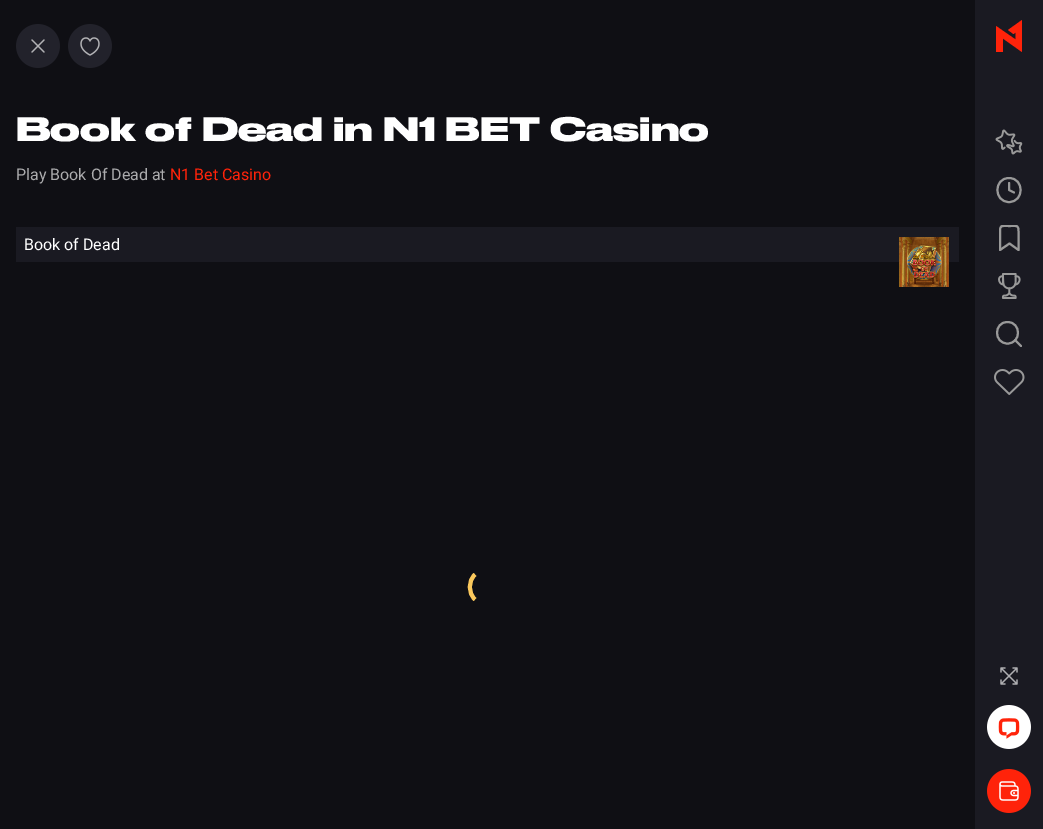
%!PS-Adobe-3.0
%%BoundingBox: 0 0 1043 829
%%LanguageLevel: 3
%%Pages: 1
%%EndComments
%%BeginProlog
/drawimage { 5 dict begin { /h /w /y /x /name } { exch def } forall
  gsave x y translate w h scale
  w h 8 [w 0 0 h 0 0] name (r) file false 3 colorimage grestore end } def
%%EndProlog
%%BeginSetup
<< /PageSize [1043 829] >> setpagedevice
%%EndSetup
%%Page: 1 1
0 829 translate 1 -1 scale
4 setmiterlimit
0.059 0.059 0.078 setrgbcolor
0 0 1043 829 rectfill
(images/1.raw) 16 24 44 44 drawimage
(images/2.raw) 68 24 44 44 drawimage
0.102 0.102 0.133 setrgbcolor
975 0 68 829 rectfill
1 0.137 0.039 setrgbcolor
newpath 1022 20 moveto 1008 30 lineto 1013.5 34 lineto 1015.5 32.5 lineto 1015.5 39.5 lineto 996 26 lineto 996 52 lineto 1003 52 lineto 1003 38.5 lineto 1022 52 lineto closepath fill
(images/3.raw) 995 129 28 26 drawimage
0.6 setgray
2 setlinewidth
1 setlinecap
1 setlinejoin
newpath 1009 202 moveto 1024.5 202 1024.5 178 1009 178 curveto 993.5 178 993.5 202 1009 202 curveto closepath 1009 183 moveto 1009 190 lineto 1014 192.5 lineto stroke
gsave
999 225 21 26 rectclip
newpath 1018.5 250 moveto 1009.5 243.5 lineto 1000 250 lineto 1000 232 lineto 1000 224.5 1001 226 1009.5 226 curveto 1017.5 226 1018.5 224.5 1018.5 232 curveto closepath stroke
grestore
(images/4.raw) 998 273 23 26 drawimage
newpath 1007.5 343.5 moveto 1021.5 343.5 1021.5 322 1007.5 322 curveto 993.5 322 993.5 343.5 1007.5 343.5 curveto closepath 1021 346 moveto 1015 340 lineto stroke
(images/5.raw) 994 369 31 26 drawimage
(images/6.raw) 1000 667 18 18 drawimage
(images/7.raw) 987 705 44 44 drawimage
(images/8.raw) 987 769 44 44 drawimage
0.102 0.102 0.133 setrgbcolor
16 227 943 35 rectfill
0.98 0.784 0.361 setrgbcolor
4 setlinewidth
0 setlinecap
0 setlinejoin
newpath 475 599.5 moveto 468 593 468 581 475 574.5 curveto stroke
(images/9.raw) 899 237 50 50 drawimage
/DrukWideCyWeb-Bold [32 0 0 -32 0 0] selectfont
1 setgray
16 141 moveto (Book of Dead in N1 BET Casino) show
/Roboto-Regular [16 0 0 -16 0 0] selectfont
0.671 0.671 0.678 setrgbcolor
16 180 moveto (Play Book Of Dead at) show
1 0.137 0.039 setrgbcolor
170 180 moveto (N1 Bet Casino) show
1 setgray
24 250 moveto (Book of Dead) show
showpage
%%EOF
